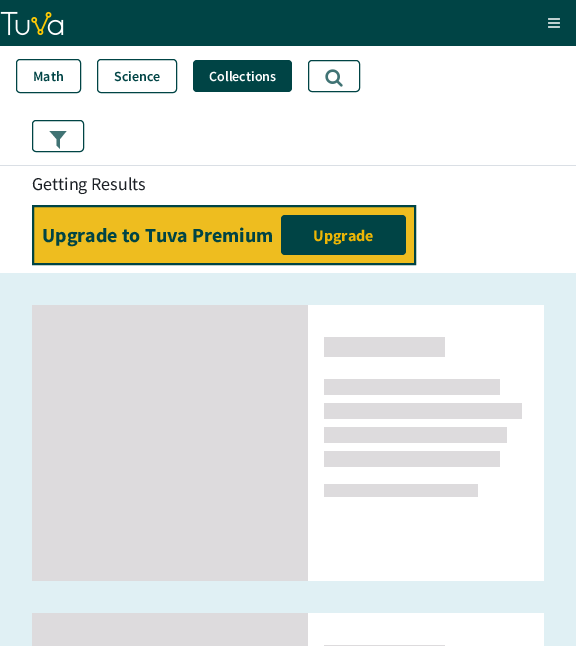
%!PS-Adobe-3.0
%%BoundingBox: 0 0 576 646
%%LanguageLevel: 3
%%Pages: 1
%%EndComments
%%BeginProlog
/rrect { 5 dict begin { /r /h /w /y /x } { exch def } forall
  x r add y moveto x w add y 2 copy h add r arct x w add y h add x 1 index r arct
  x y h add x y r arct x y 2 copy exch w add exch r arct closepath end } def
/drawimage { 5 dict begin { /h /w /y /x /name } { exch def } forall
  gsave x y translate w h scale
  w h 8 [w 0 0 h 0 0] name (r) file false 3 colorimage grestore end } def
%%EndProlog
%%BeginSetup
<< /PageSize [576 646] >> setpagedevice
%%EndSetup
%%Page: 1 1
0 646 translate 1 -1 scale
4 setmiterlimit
1 setgray
0 0 576 646 rectfill
0 0.267 0.271 setrgbcolor
0 0 576 46 rectfill
(images/1.raw) 0 11 64 25 drawimage
(images/2.raw) 548 18 12 10 drawimage
0.855 0.875 0.898 setrgbcolor
0 165 576 1 rectfill
0 0.267 0.271 setrgbcolor
16.5 59.5 64 33 3.5 rrect stroke
97.5 59.5 79 33 3.5 rrect stroke
193 60 99 32 4 rrect fill
308.5 60.5 51 31 3.5 rrect stroke
(images/3.raw) 325 69 18 18 drawimage
32.5 120.5 51 31 3.5 rrect stroke
0.251 0.451 0.455 setrgbcolor
newpath 49.5 131 moveto 66.5 131 lineto 60 139 lineto 60 149 lineto 56.5 145.5 lineto 56.5 139 lineto closepath fill
0.933 0.741 0.122 setrgbcolor
newpath 33 206 moveto 415 206 lineto 415 264 lineto 33 264 lineto closepath gsave fill grestore
0 0.267 0.271 setrgbcolor
2 setlinewidth
stroke
281 215 125 40 4 rrect fill
0.878 0.941 0.957 setrgbcolor
0 273 576 373 rectfill
1 setgray
308 305 236 276 rectfill
0.867 0.859 0.867 setrgbcolor
32 305 276 276 rectfill
324 337 121 20 rectfill
324 379 176 16 rectfill
324 403 198 16 rectfill
324 427 183 16 rectfill
324 451 176 16 rectfill
324 484 154 13 rectfill
1 setgray
308 613 236 33 rectfill
0.867 0.859 0.867 setrgbcolor
32 613 276 33 rectfill
324 645 121 1 rectfill
/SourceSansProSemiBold-SemiBold [14 0 0 -14 0 0] selectfont
0 0.267 0.271 setrgbcolor
33 81 moveto (Math) show
114 81 moveto (Science) show
1 setgray
209 81 moveto (Collections) show
/SourceSansPro-Regular [18 0 0 -18 0 0] selectfont
0.11 0.125 0.145 setrgbcolor
32 190 moveto (Getting Results) show
/SourceSansPro-Bold [20 0 0 -20 0 0] selectfont
0 0.267 0.271 setrgbcolor
42 242 moveto (Upgrade to Tuva Premium) show
/SourceSansPro-Bold [16 0 0 -16 0 0] selectfont
0.925 0.714 0.024 setrgbcolor
313 241 moveto (Upgrade) show
showpage
%%EOF
